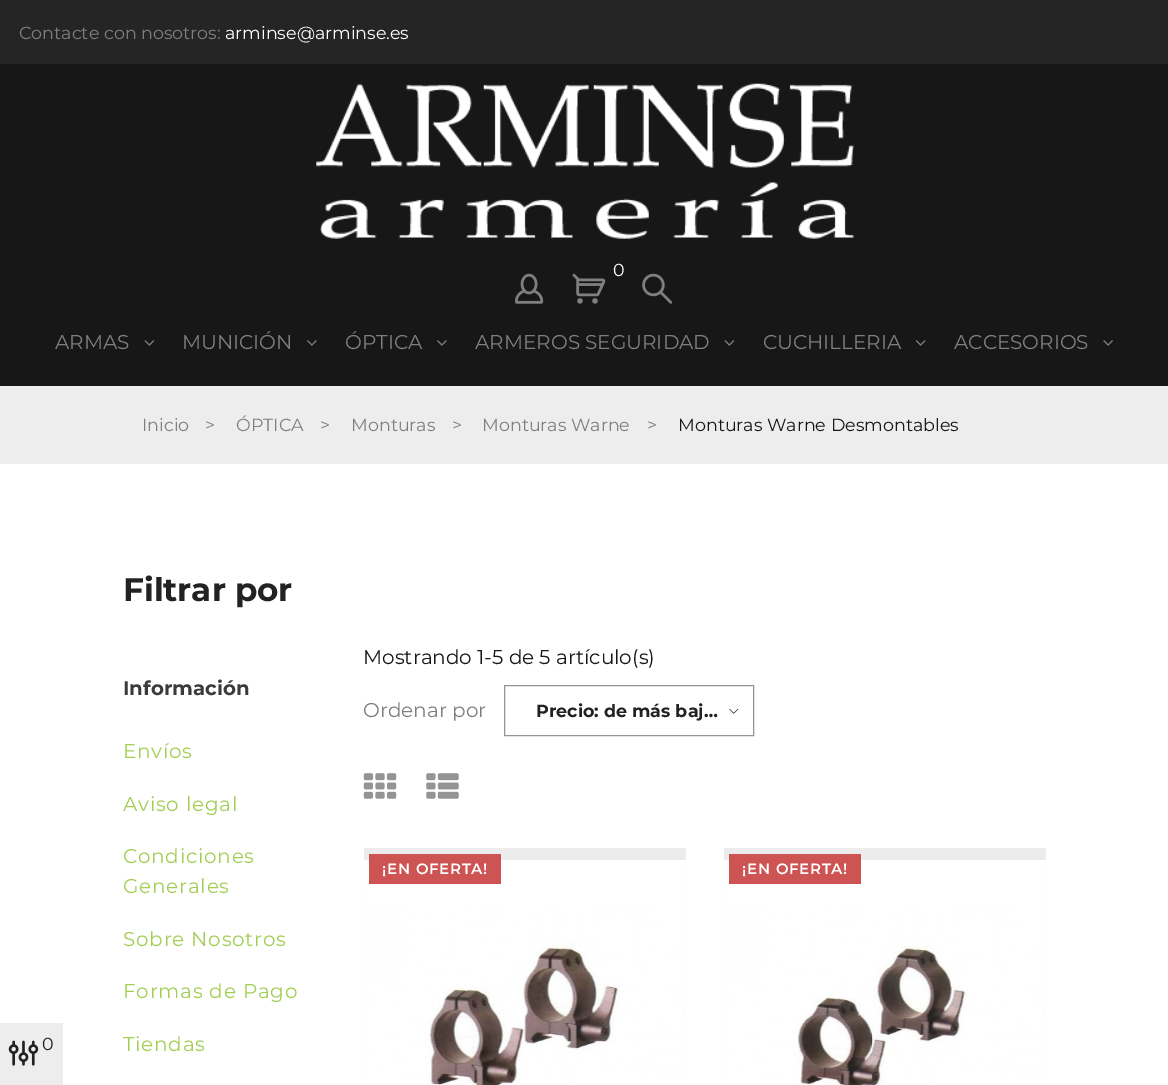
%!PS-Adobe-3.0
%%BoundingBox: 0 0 1168 1085
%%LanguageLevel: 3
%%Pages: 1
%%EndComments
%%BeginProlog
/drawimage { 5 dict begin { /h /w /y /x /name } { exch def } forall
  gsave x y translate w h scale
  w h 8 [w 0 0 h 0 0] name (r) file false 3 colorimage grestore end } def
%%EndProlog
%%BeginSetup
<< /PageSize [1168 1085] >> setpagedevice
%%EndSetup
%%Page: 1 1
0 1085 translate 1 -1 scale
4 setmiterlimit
1 setgray
0 0 1168 1085 rectfill
0.09 0.09 0.094 setrgbcolor
0 64 1168 322 rectfill
0.145 0.145 0.149 setrgbcolor
0 0 1168 64 rectfill
(images/1.raw) 316 83 538 156 drawimage
(images/2.raw) 572 273 34 31 drawimage
(images/3.raw) 515 273 29 31 drawimage
(images/4.raw) 642 273 31 31 drawimage
(images/5.raw) 144 340 11 6 drawimage
(images/6.raw) 307 340 10 6 drawimage
(images/6.raw) 437 340 10 6 drawimage
(images/5.raw) 724 340 11 6 drawimage
(images/7.raw) 915 340 11 6 drawimage
(images/8.raw) 1103 340 10 6 drawimage
0.929 setgray
0 1023 63 62 rectfill
(images/9.raw) 8 1040 31 26 drawimage
0 386 1168 78 rectfill
(images/10.raw) 729 708 10 6 drawimage
0.58 setgray
504.5 685.5 249 50 rectstroke
(images/11.raw) 363 773 34 26 drawimage
(images/12.raw) 426 773 33 26 drawimage
0.925 setgray
364 848 322 237 rectfill
(images/13.raw) 364 860 322 225 drawimage
0.808 0.329 0.329 setrgbcolor
369 854 132 30 rectfill
0.925 setgray
724 848 322 237 rectfill
(images/14.raw) 724 860 322 225 drawimage
0.808 0.329 0.329 setrgbcolor
729 854 132 30 rectfill
/Montserrat-Regular [17.5 0 0 -17.5 0 0] selectfont
0.498 setgray
19 39 moveto (Contacte con nosotros:) show
1 setgray
225 39 moveto (arminse@arminse.es) show
613 276 moveto (0) show
/Montserrat-Regular [20 0 0 -20 0 0] selectfont
0.498 setgray
55 349 moveto (ARMAS) show
182 349 moveto (MUNICIÓN) show
345 349 moveto (ÓPTICA) show
475 349 moveto (ARMEROS SEGURIDAD) show
763 349 moveto (CUCHILLERIA) show
954 349 moveto (ACCESORIOS) show
/Montserrat-Regular [17.5 0 0 -17.5 0 0] selectfont
0.133 0.133 0.145 setrgbcolor
42 1050 moveto (0) show
0.498 setgray
142 431 moveto (Inicio) show
205 431 moveto (>) show
236 431 moveto (ÓPTICA) show
320 431 moveto (>) show
351 431 moveto (Monturas) show
452 431 moveto (>) show
482 431 moveto (Monturas Warne) show
647 431 moveto (>) show
0.09 0.09 0.094 setrgbcolor
678 431 moveto (Monturas Warne Desmontables) show
/Montserrat-Bold [32.5 0 0 -32.5 0 0] selectfont
0.133 0.133 0.145 setrgbcolor
123 601 moveto (Filtrar por) show
/Montserrat-Bold [19.75 0 0 -19.75 0 0] selectfont
0.227 setgray
123 695 moveto (Información) show
/Montserrat-Regular [20 0 0 -20 0 0] selectfont
0.639 0.808 0.329 setrgbcolor
123 758 moveto 0.75 0 (Envíos) ashow
123 811 moveto 0.75 0 (Aviso legal) ashow
123 863 moveto 0.75 0 (Condiciones) ashow
123 893 moveto 0.75 0 (Generales) ashow
123 946 moveto 0.75 0 (Sobre Nosotros) ashow
123 998 moveto 0.75 0 (Formas de Pago) ashow
123 1051 moveto 0.75 0 (Tiendas) ashow
0.09 0.09 0.094 setrgbcolor
363 664 moveto (Mostrando 1-5 de 5 artículo\(s\)) show
0.498 setgray
363 717 moveto (Ordenar por) show
/Montserrat-Bold [17.5 0 0 -17.5 0 0] selectfont
0.133 0.133 0.145 setrgbcolor
536 717 moveto (Precio: de más baj…) show
/Montserrat-SemiBold [15 0 0 -15 0 0] selectfont
1 setgray
382 874 moveto 0.75 0 (¡EN OFERTA!) ashow
742 874 moveto 0.75 0 (¡EN OFERTA!) ashow
showpage
%%EOF
